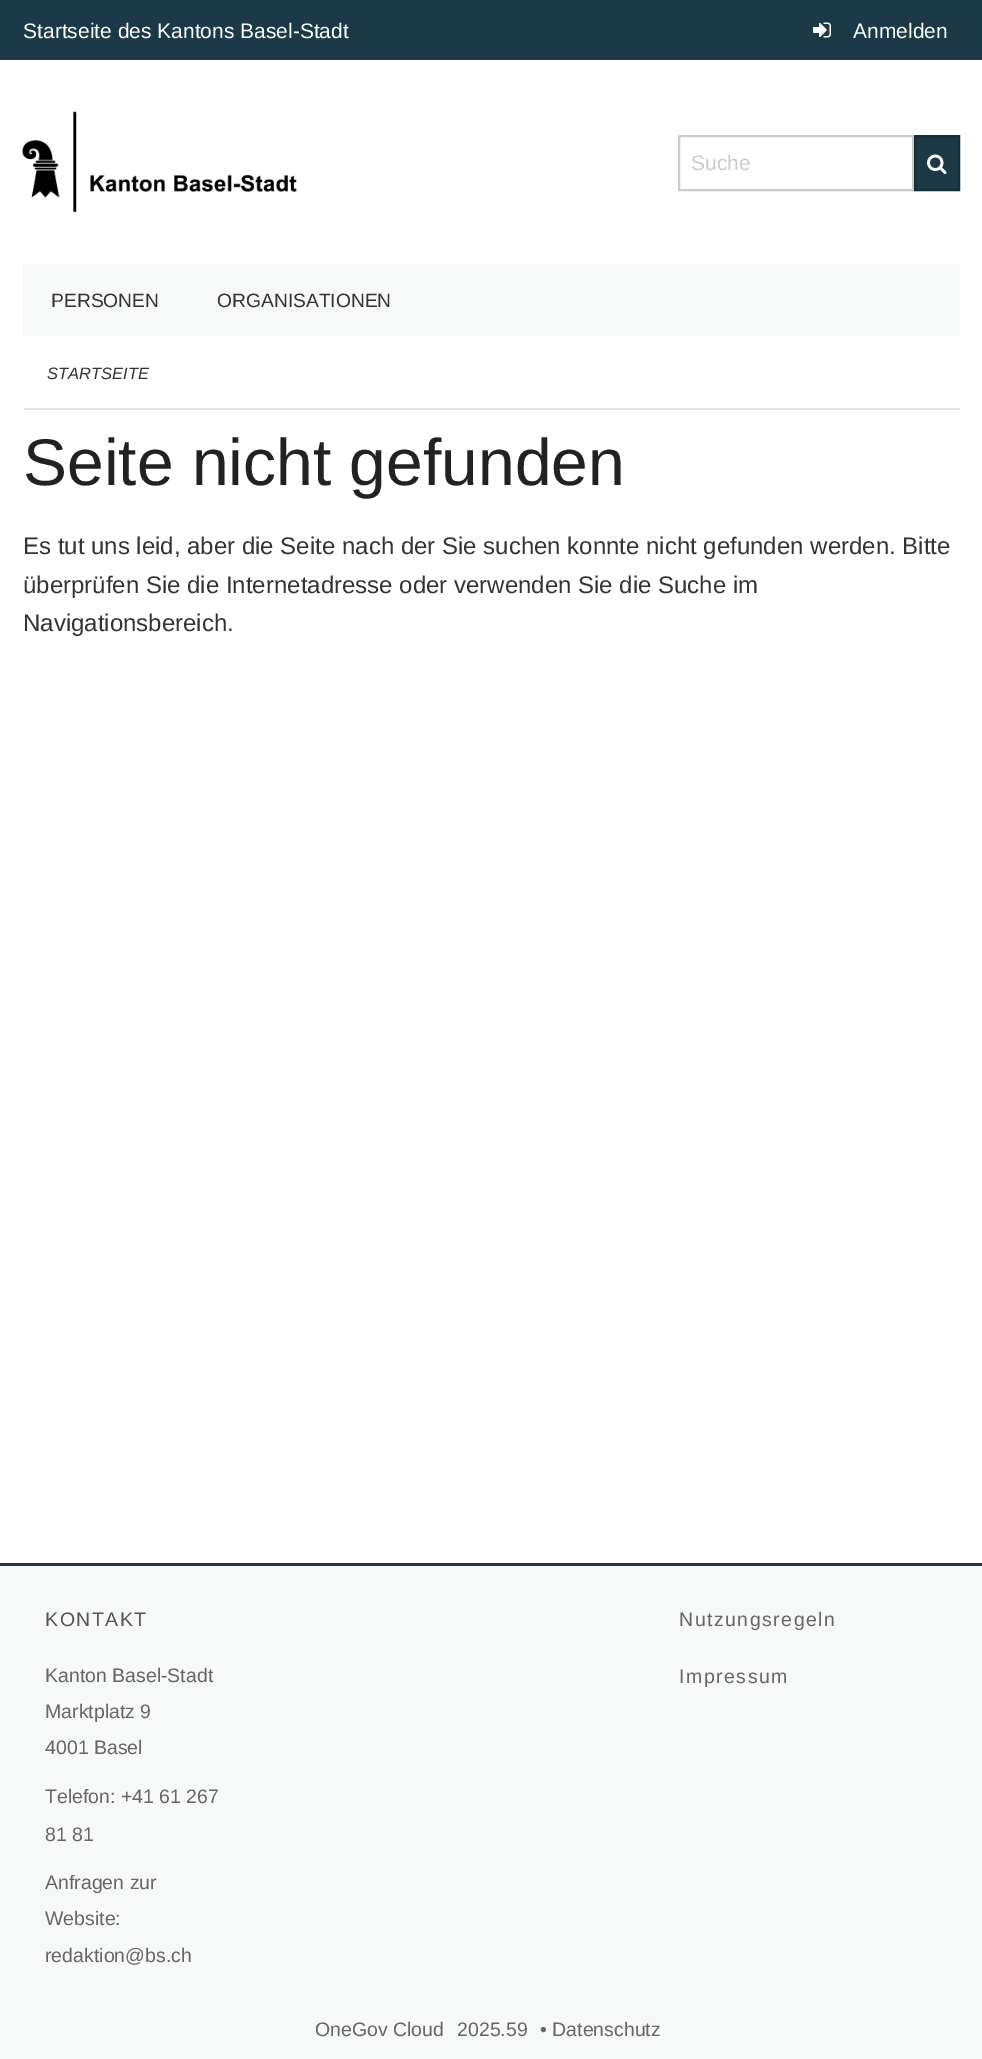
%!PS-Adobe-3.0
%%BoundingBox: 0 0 982 2059
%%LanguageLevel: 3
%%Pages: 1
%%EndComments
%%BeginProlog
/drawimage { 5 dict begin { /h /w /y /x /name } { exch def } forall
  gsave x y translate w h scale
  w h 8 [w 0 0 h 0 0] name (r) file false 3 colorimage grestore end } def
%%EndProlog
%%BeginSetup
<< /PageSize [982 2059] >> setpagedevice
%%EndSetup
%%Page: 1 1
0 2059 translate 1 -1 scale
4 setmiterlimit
1 setgray
0 0 982 2059 rectfill
0.11 0.224 0.278 setrgbcolor
0 0 982 60 rectfill
(images/1.raw) 813 22 18 16 drawimage
(images/2.raw) 22 111 275 102 drawimage
0.8 setgray
2 setlinewidth
679 136 234 54 rectstroke
0.11 0.224 0.278 setrgbcolor
newpath 915 136 moveto 959 136 lineto 959 190 lineto 915 190 lineto closepath gsave fill grestore
0.086 0.18 0.224 setrgbcolor
stroke
(images/3.raw) 927 154 20 20 drawimage
0.969 0.973 0.973 setrgbcolor
23 264 937 72 rectfill
0.878 0.89 0.898 setrgbcolor
24 408 936 2 rectfill
0.11 0.224 0.278 setrgbcolor
newpath 0 1563 moveto 0 1566 lineto 982 1566 lineto 982 2057 lineto 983 2057 lineto 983 1563 lineto closepath fill
0.969 0.973 0.973 setrgbcolor
0 1566 982 493 rectfill
/LiberationSans-Regular [21 0 0 -21 0 0] selectfont
1 setgray
23 38 moveto (Startseite des Kantons Basel-Stadt) show
853 38 moveto (Anmelden) show
0.8 setgray
691 170 moveto (Suche) show
/LiberationSans-Regular [19.25 0 0 -19.25 0 0] selectfont
0.2 setgray
51 307 moveto (PERSONEN) show
217 307 moveto (ORGANISATIONEN) show
/LiberationSans-Italic [16.5 0 0 -16.5 0 0] selectfont
47 379 moveto (STARTSEITE) show
/LiberationSans-Regular [66 0 0 -66 0 0] selectfont
0.133 setgray
23 485 moveto (Seite nicht gefunden) show
/LiberationSans-Regular [24 0 0 -24 0 0] selectfont
0.2 setgray
23 554 moveto (Es tut uns leid, aber die Seite nach der Sie suchen konnte nicht gefunden werden. Bitte) show
23 593 moveto (überprüfen Sie die Internetadresse oder verwenden Sie die Suche im) show
23 631 moveto (Navigationsbereich.) show
/LiberationSans-Regular [19.5 0 0 -19.5 0 0] selectfont
0.333 setgray
45 1626 moveto 1.5 0 (KONTAKT) ashow
0.4 setgray
45 1682 moveto (Kanton Basel-Stadt) show
45 1718 moveto (Marktplatz 9) show
45 1754 moveto (4001 Basel) show
45 1803 moveto (Telefon: +41 61 267) show
45 1841 moveto (81 81) show
45 1889 moveto (Anfragen zur) show
45 1925 moveto (Website:) show
45 1962 moveto (redaktion@bs.ch) show
679 1626 moveto 1.5 0 (Nutzungsregeln) ashow
679 1683 moveto 1.5 0 (Impressum) ashow
315 2036 moveto (OneGov Cloud) show
457 2036 moveto (2025.59) show
540 2036 moveto (• Datenschutz) show
showpage
%%EOF
